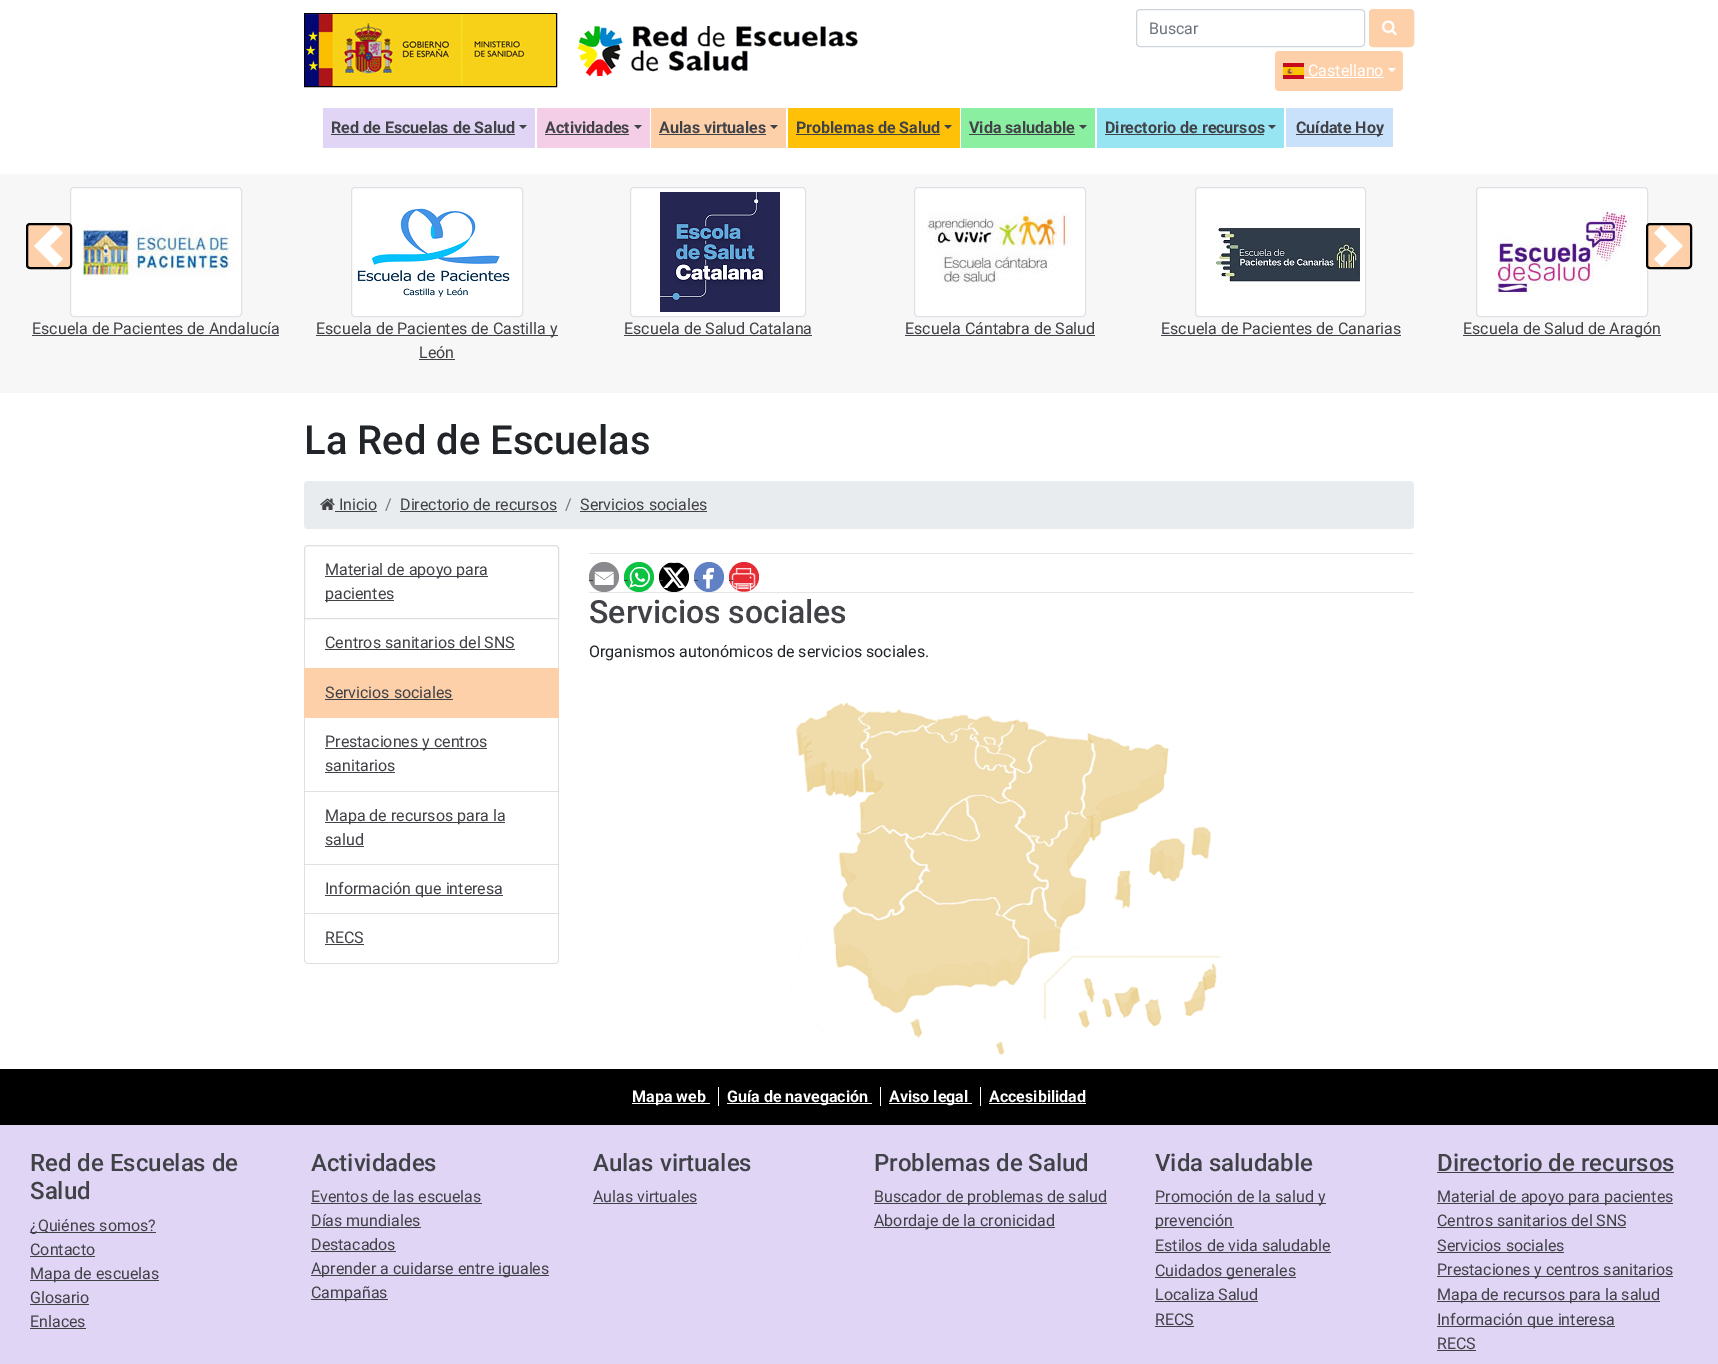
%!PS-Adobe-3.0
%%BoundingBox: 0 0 1718 1364
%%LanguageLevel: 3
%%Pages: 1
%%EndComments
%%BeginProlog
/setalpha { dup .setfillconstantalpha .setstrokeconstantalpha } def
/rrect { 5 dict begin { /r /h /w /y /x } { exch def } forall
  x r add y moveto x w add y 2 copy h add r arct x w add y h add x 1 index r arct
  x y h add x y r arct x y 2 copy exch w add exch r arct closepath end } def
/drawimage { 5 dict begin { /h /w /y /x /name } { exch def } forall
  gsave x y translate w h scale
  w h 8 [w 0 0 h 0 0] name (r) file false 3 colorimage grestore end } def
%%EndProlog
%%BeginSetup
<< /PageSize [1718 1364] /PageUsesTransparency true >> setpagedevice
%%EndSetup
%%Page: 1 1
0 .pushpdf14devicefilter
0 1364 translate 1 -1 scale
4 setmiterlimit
1 setgray
0 0 1718 1364 rectfill
0 setgray
304.5 13.5 252 73 rectstroke
(images/1.raw) 305 14 251 72 drawimage
(images/2.raw) 577 26 281 50 drawimage
0.808 0.831 0.855 setrgbcolor
1136.5 9.5 228 37 3.5 rrect stroke
0.992 0.816 0.667 setrgbcolor
1369.5 9.5 44 37 3.5 rrect gsave fill grestore
stroke
(images/3.raw) 1382 20 15 16 drawimage
1275 51 128 40 4 rrect fill
(images/4.raw) 1283 63 21 16 drawimage
1 setgray
1304 77 80 1 rectfill
newpath 1388 68 moveto 1396 68 lineto 1392 72 lineto closepath fill
0.882 0.835 0.965 setrgbcolor
323 108 212 40 rectfill
0.255 0.259 0.278 setrgbcolor
331 134 184 1 rectfill
newpath 519 125 moveto 527 125 lineto 523 129 lineto closepath fill
0.957 0.804 0.902 setrgbcolor
537 108 113 40 rectfill
0.255 0.259 0.278 setrgbcolor
545 134 84 1 rectfill
newpath 634 125 moveto 642 125 lineto 638 129 lineto closepath fill
0.992 0.816 0.667 setrgbcolor
651 108 135 40 rectfill
0.255 0.259 0.278 setrgbcolor
659 134 107 1 rectfill
newpath 770 125 moveto 778 125 lineto 774 129 lineto closepath fill
1 0.757 0.027 setrgbcolor
788 108 172 40 rectfill
0.255 0.259 0.278 setrgbcolor
796 134 144 1 rectfill
newpath 944 125 moveto 952 125 lineto 948 129 lineto closepath fill
0.541 0.937 0.631 setrgbcolor
961 108 134 40 rectfill
0.255 0.259 0.278 setrgbcolor
969 134 106 1 rectfill
newpath 1079 125 moveto 1087 125 lineto 1083 129 lineto closepath fill
0.592 0.898 0.949 setrgbcolor
1097 108 187 40 rectfill
0.255 0.259 0.278 setrgbcolor
1105 134 159 1 rectfill
newpath 1268 125 moveto 1276 125 lineto 1272 129 lineto closepath fill
0.792 0.882 0.988 setrgbcolor
1286 108 107 39 rectfill
0.255 0.259 0.278 setrgbcolor
1296 134 87 1 rectfill
0.969 setgray
0 174 1718 219 rectfill
1 setgray
70.5 187.5 171 129 3.5 rrect gsave fill grestore
0.871 0.886 0.902 setrgbcolor
stroke
0.992 0.816 0.667 setrgbcolor
26 223 46 46 4 rrect fill
1 setgray
newpath 55 225 moveto 34 246 lineto 55 267 lineto 63 259 lineto 50 246 lineto 63 233 lineto closepath fill
0 setgray
2 setlinewidth
27 224 44 44 3 rrect stroke
1 setgray
1476.5 187.5 171 129 3.5 rrect gsave fill grestore
0.871 0.886 0.902 setrgbcolor
1 setlinewidth
stroke
0.992 0.816 0.667 setrgbcolor
1646 223 46 46 4 rrect fill
1 setgray
newpath 1662 225 moveto 1654 233 lineto 1667 246 lineto 1654 259 lineto 1662 267 lineto 1683 246 lineto closepath fill
0 setgray
2 setlinewidth
1647 224 44 44 3 rrect stroke
(images/5.raw) 83 224 152 56 drawimage
0.255 0.259 0.278 setrgbcolor
32 335 247 1 rectfill
1 setgray
351.5 187.5 171 129 3.5 rrect gsave fill grestore
0.871 0.886 0.902 setrgbcolor
1 setlinewidth
stroke
(images/6.raw) 357 208 153 89 drawimage
0.255 0.259 0.278 setrgbcolor
316 335 242 1 rectfill
419 359 36 1 rectfill
1 setgray
630.5 187.5 175 129 3.5 rrect gsave fill grestore
0.871 0.886 0.902 setrgbcolor
stroke
(images/7.raw) 660 192 120 120 drawimage
0.255 0.259 0.278 setrgbcolor
624 335 188 1 rectfill
1 setgray
914.5 187.5 171 129 3.5 rrect gsave fill grestore
0.871 0.886 0.902 setrgbcolor
stroke
(images/8.raw) 927 211 144 77 drawimage
0.255 0.259 0.278 setrgbcolor
905 335 190 1 rectfill
1 setgray
1195.5 187.5 170 129 3.5 rrect gsave fill grestore
0.871 0.886 0.902 setrgbcolor
stroke
(images/9.raw) 1215 224 145 64 drawimage
0.255 0.259 0.278 setrgbcolor
1161 335 240 1 rectfill
(images/10.raw) 1497 208 136 88 drawimage
1463 335 198 1 rectfill
0.914 0.925 0.937 setrgbcolor
304 481 1110 48 4 rrect fill
(images/11.raw) 320 498 15 12 drawimage
0.255 0.259 0.278 setrgbcolor
335 511 42 1 rectfill
400 511 157 1 rectfill
580 511 127 1 rectfill
0.875 setgray
newpath 308 545.5 moveto 555 545.5 lineto 557 545.5 558.5 547 558.5 549 curveto 558.5 618.5 lineto 304.5 618.5 lineto 304.5 549 lineto 304.5 547 306 545.5 308 545.5 curveto closepath stroke
0.255 0.259 0.278 setrgbcolor
325 576 163 1 rectfill
325 600 69 1 rectfill
0.875 setgray
newpath 559 619 moveto 559 669 lineto 558 668 lineto 558 619 lineto closepath fill
0.12 setalpha
0 setgray
newpath 304 669 moveto 304 619 lineto 305 619 lineto 305 668 lineto closepath fill
1 setalpha
0.255 0.259 0.278 setrgbcolor
325 649 190 1 rectfill
0.992 0.816 0.667 setrgbcolor
304 668 255 50 rectfill
0.255 0.259 0.278 setrgbcolor
325 699 128 1 rectfill
0.875 setgray
newpath 559 718 moveto 559 792 lineto 558 791 lineto 558 718 lineto closepath fill
0.12 setalpha
0 setgray
newpath 559 792 moveto 304 792 lineto 305 791 lineto 558 791 lineto closepath fill
newpath 304 792 moveto 304 718 lineto 305 718 lineto 305 791 lineto closepath fill
1 setalpha
0.255 0.259 0.278 setrgbcolor
325 748 162 1 rectfill
325 772 70 1 rectfill
0.875 setgray
newpath 559 792 moveto 559 865 lineto 558 864 lineto 558 792 lineto closepath fill
0.12 setalpha
0 setgray
newpath 559 865 moveto 304 865 lineto 305 864 lineto 558 864 lineto closepath fill
newpath 304 865 moveto 304 792 lineto 305 792 lineto 305 864 lineto closepath fill
1 setalpha
0.255 0.259 0.278 setrgbcolor
325 822 180 1 rectfill
325 846 39 1 rectfill
0.875 setgray
newpath 559 865 moveto 559 914 lineto 558 913 lineto 558 865 lineto closepath fill
0.12 setalpha
0 setgray
newpath 559 914 moveto 304 914 lineto 305 913 lineto 558 913 lineto closepath fill
newpath 304 914 moveto 304 865 lineto 305 865 lineto 305 913 lineto closepath fill
1 setalpha
0.255 0.259 0.278 setrgbcolor
325 895 178 1 rectfill
0.875 setgray
newpath 304 914 moveto 559 914 lineto 559 960 lineto 559 962 557 964 555 964 curveto 308 964 lineto 306 964 304 962 304 960 curveto closepath 305 914 moveto 558 914 lineto 558 960 lineto 558 962 557 963 555 963 curveto 308 963 lineto 306 963 305 962 305 960 curveto closepath eofill
0.255 0.259 0.278 setrgbcolor
325 944 39 1 rectfill
0.902 setgray
589 553 825 1 rectfill
0.541 0.537 0.553 setrgbcolor
newpath 604 577 15 0 360 arc closepath fill
(images/12.raw) 594 571 20 14 drawimage
0.255 0.259 0.278 setrgbcolor
589 580 4 1 rectfill
0.051 0.757 0.263 setrgbcolor
newpath 639 577 15 0 360 arc closepath fill
(images/13.raw) 629 567 21 21 drawimage
0.255 0.259 0.278 setrgbcolor
624 580 4 1 rectfill
0 setgray
newpath 674 577 15 0 360 arc closepath fill
(images/14.raw) 663 562 22 26 drawimage
0.255 0.259 0.278 setrgbcolor
659 580 4 1 rectfill
0.376 0.506 0.769 setrgbcolor
newpath 709 577 15 0 360 arc closepath fill
(images/15.raw) 703 568 11 21 drawimage
0.255 0.259 0.278 setrgbcolor
694 580 4 1 rectfill
0.902 0.169 0.204 setrgbcolor
newpath 744 577 15 0 360 arc closepath fill
(images/16.raw) 731 568 25 24 drawimage
0.255 0.259 0.278 setrgbcolor
729 580 4 1 rectfill
0.902 setgray
589 592 825 1 rectfill
(images/17.raw) 784 702 437 353 drawimage
0 setgray
0 1069 1718 56 rectfill
1 setgray
718 1087 1 19 rectfill
632 1103 78 1 rectfill
880 1087 1 19 rectfill
727 1103 145 1 rectfill
980 1087 1 19 rectfill
889 1103 83 1 rectfill
989 1103 97 1 rectfill
0.882 0.835 0.965 setrgbcolor
0 1125 1718 239 rectfill
0.255 0.259 0.278 setrgbcolor
30 1232 126 1 rectfill
30 1256 65 1 rectfill
30 1280 129 1 rectfill
30 1304 59 1 rectfill
30 1328 56 1 rectfill
311 1203 171 1 rectfill
311 1227 110 1 rectfill
311 1251 85 1 rectfill
311 1275 238 1 rectfill
311 1299 77 1 rectfill
593 1203 104 1 rectfill
874 1203 233 1 rectfill
874 1227 181 1 rectfill
1155 1203 171 1 rectfill
1155 1227 79 1 rectfill
1155 1252 176 1 rectfill
1155 1277 141 1 rectfill
1155 1301 103 1 rectfill
1155 1326 39 1 rectfill
1437 1172 237 1 rectfill
1437 1203 236 1 rectfill
1437 1227 189 1 rectfill
1437 1252 127 1 rectfill
1437 1276 236 1 rectfill
1437 1301 223 1 rectfill
1437 1326 178 1 rectfill
1437 1350 39 1 rectfill
/Roboto-Regular [16 0 0 -16 0 0] selectfont
0.424 0.459 0.49 setrgbcolor
1149 34 moveto (Buscar) show
1 setgray
1308 76 moveto (Castellano) show
/Roboto-Bold [16 0 0 -16 0 0] selectfont
0.255 0.259 0.278 setrgbcolor
331 133 moveto (Red de Escuelas de Salud) show
545 133 moveto (Actividades) show
659 133 moveto (Aulas virtuales) show
796 133 moveto (Problemas de Salud) show
969 133 moveto (Vida saludable) show
1105 133 moveto (Directorio de recursos) show
1296 133 moveto (Cuídate Hoy) show
/Roboto-Regular [16 0 0 -16 0 0] selectfont
32 334 moveto (Escuela de Pacientes de Andalucía) show
316 334 moveto (Escuela de Pacientes de Castilla y) show
419 358 moveto (León) show
624 334 moveto (Escuela de Salud Catalana) show
905 334 moveto (Escuela Cántabra de Salud) show
1161 334 moveto (Escuela de Pacientes de Canarias) show
1463 334 moveto (Escuela de Salud de Aragón) show
/Roboto-Medium [40 0 0 -40 0 0] selectfont
0.129 0.145 0.161 setrgbcolor
304 454 moveto (La Red de Escuelas) show
/Roboto-Regular [16 0 0 -16 0 0] selectfont
0.255 0.259 0.278 setrgbcolor
339 510 moveto (Inicio) show
0.424 0.459 0.49 setrgbcolor
385 510 moveto (/) show
0.255 0.259 0.278 setrgbcolor
400 510 moveto (Directorio de recursos) show
0.424 0.459 0.49 setrgbcolor
565 510 moveto (/) show
0.255 0.259 0.278 setrgbcolor
580 510 moveto (Servicios sociales) show
325 575 moveto (Material de apoyo para) show
325 599 moveto (pacientes) show
325 648 moveto (Centros sanitarios del SNS) show
325 698 moveto (Servicios sociales) show
325 747 moveto (Prestaciones y centros) show
325 771 moveto (sanitarios) show
325 821 moveto (Mapa de recursos para la) show
325 845 moveto (salud) show
325 894 moveto (Información que interesa) show
325 943 moveto (RECS) show
/Roboto-Medium [32 0 0 -32 0 0] selectfont
589 623 moveto (Servicios sociales) show
/Roboto-Regular [16 0 0 -16 0 0] selectfont
0.129 0.145 0.161 setrgbcolor
589 657 moveto (Organismos autonómicos de servicios sociales.) show
/Roboto-Bold [16 0 0 -16 0 0] selectfont
1 setgray
632 1102 moveto (Mapa web) show
727 1102 moveto (Guía de navegación) show
889 1102 moveto (Aviso legal) show
989 1102 moveto (Accesibilidad) show
/Roboto-Medium [24 0 0 -24 0 0] selectfont
0.255 0.259 0.278 setrgbcolor
30 1171 moveto (Red de Escuelas de) show
30 1199 moveto (Salud) show
/Roboto-Regular [16 0 0 -16 0 0] selectfont
30 1231 moveto (¿Quiénes somos?) show
30 1255 moveto (Contacto) show
30 1279 moveto (Mapa de escuelas) show
30 1303 moveto (Glosario) show
30 1327 moveto (Enlaces) show
/Roboto-Medium [24 0 0 -24 0 0] selectfont
311 1171 moveto (Actividades) show
/Roboto-Regular [16 0 0 -16 0 0] selectfont
311 1202 moveto (Eventos de las escuelas) show
311 1226 moveto (Días mundiales) show
311 1250 moveto (Destacados) show
311 1274 moveto (Aprender a cuidarse entre iguales) show
311 1298 moveto (Campañas) show
/Roboto-Medium [24 0 0 -24 0 0] selectfont
593 1171 moveto (Aulas virtuales) show
/Roboto-Regular [16 0 0 -16 0 0] selectfont
593 1202 moveto (Aulas virtuales) show
/Roboto-Medium [24 0 0 -24 0 0] selectfont
874 1171 moveto (Problemas de Salud) show
/Roboto-Regular [16 0 0 -16 0 0] selectfont
874 1202 moveto (Buscador de problemas de salud) show
874 1226 moveto (Abordaje de la cronicidad) show
/Roboto-Medium [24 0 0 -24 0 0] selectfont
1155 1171 moveto (Vida saludable) show
/Roboto-Regular [16 0 0 -16 0 0] selectfont
1155 1202 moveto (Promoción de la salud y) show
1155 1226 moveto (prevención) show
1155 1251 moveto (Estilos de vida saludable) show
1155 1276 moveto (Cuidados generales) show
1155 1300 moveto (Localiza Salud) show
1155 1325 moveto (RECS) show
/Roboto-Medium [24 0 0 -24 0 0] selectfont
1437 1171 moveto (Directorio de recursos) show
/Roboto-Regular [16 0 0 -16 0 0] selectfont
1437 1202 moveto (Material de apoyo para pacientes) show
1437 1226 moveto (Centros sanitarios del SNS) show
1437 1251 moveto (Servicios sociales) show
1437 1275 moveto (Prestaciones y centros sanitarios) show
1437 1300 moveto (Mapa de recursos para la salud) show
1437 1325 moveto (Información que interesa) show
1437 1349 moveto (RECS) show
.poppdf14devicefilter showpage
%%EOF
